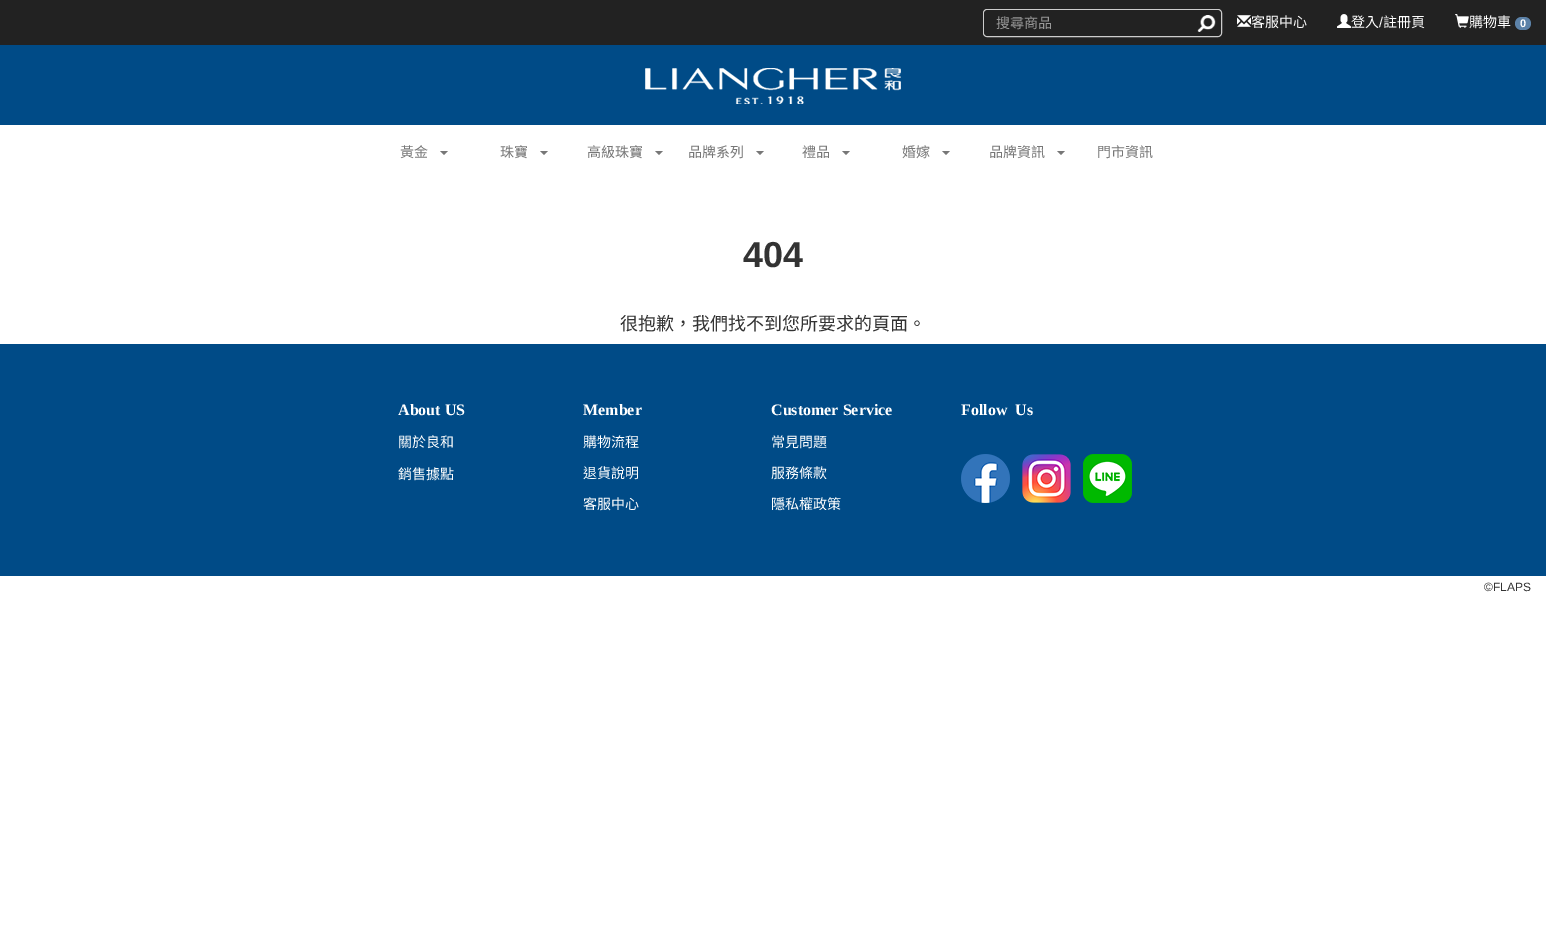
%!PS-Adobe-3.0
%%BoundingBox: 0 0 1546 938
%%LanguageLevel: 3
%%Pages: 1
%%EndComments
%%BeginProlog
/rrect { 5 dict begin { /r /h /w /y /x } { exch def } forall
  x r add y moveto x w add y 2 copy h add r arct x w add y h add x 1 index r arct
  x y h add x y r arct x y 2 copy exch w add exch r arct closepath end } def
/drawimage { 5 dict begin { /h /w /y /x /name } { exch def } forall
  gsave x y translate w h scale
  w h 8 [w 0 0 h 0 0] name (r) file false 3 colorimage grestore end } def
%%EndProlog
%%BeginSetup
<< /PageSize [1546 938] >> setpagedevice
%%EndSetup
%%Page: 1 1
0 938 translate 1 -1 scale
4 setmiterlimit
1 setgray
0 0 1546 938 rectfill
0.133 setgray
0 0 1546 45 rectfill
0.8 setgray
983.5 9.5 238 27 3.5 rrect stroke
0.133 setgray
newpath 988 10 moveto 1192 10 lineto 1192 36 lineto 988 36 lineto 986 36 984 34 984 32 curveto 984 14 lineto 984 12 986 10 988 10 curveto closepath fill
newpath 1192 10 moveto 1217 10 lineto 1219 10 1221 12 1221 14 curveto 1221 32 lineto 1221 34 1219 36 1217 36 curveto 1192 36 lineto closepath fill
(images/1.raw) 1197 15 19 17 drawimage
(images/2.raw) 1237 15 14 12 drawimage
(images/3.raw) 1337 14 14 14 drawimage
(images/4.raw) 1455 14 14 14 drawimage
0.361 0.51 0.659 setrgbcolor
1515 17 16 13 6.5 rrect fill
0 0.294 0.529 setrgbcolor
0 45 1546 80 rectfill
(images/5.raw) 645 68 256 36 drawimage
0.467 setgray
newpath 440 151 moveto 448 151 lineto 444 155 lineto closepath fill
newpath 540 151 moveto 548 151 lineto 544 155 lineto closepath fill
newpath 655 151 moveto 663 151 lineto 659 155 lineto closepath fill
newpath 756 151 moveto 764 151 lineto 760 155 lineto closepath fill
newpath 842 151 moveto 850 151 lineto 846 155 lineto closepath fill
newpath 942 151 moveto 950 151 lineto 946 155 lineto closepath fill
newpath 1057 151 moveto 1065 151 lineto 1061 155 lineto closepath fill
0 0.294 0.529 setrgbcolor
0 344 1546 232 rectfill
(images/6.raw) 961 454 49 49 drawimage
(images/7.raw) 1022 454 49 49 drawimage
(images/8.raw) 1083 454 49 49 drawimage
/NotoSansCJKTC-Regular [14 0 0 -14 0 0] selectfont
0.6 setgray
996 28 moveto (搜尋商品) show
1 setgray
1251 27 moveto (客服中心) show
1351 27 moveto (登入) show
/LiberationSans-Regular [14 0 0 -14 0 0] selectfont
1379 27 moveto (/) show
/NotoSansCJKTC-Regular [14 0 0 -14 0 0] selectfont
1383 27 moveto (註冊頁) show
1469 27 moveto (購物車) show
/LiberationSans-Bold [11 0 0 -11 0 0] selectfont
1520 27 moveto (0) show
/NotoSansCJKTC-Regular [14 0 0 -14 0 0] selectfont
0.467 setgray
400 157 moveto (黃金) show
500 157 moveto (珠寶) show
587 157 moveto (高級珠寶) show
688 157 moveto (品牌系列) show
802 157 moveto (禮品) show
902 157 moveto (婚嫁) show
989 157 moveto (品牌資訊) show
1097 157 moveto (門市資訊) show
/LiberationSans-Bold [36 0 0 -36 0 0] selectfont
0.2 setgray
743 267 moveto (404) show
/NotoSansCJKTC-Regular [18 0 0 -18 0 0] selectfont
620 330 moveto (很抱歉，我們找不到您所要求的頁面。) show
/LiberationSerif-Bold [16 0 0 -16 0 0] selectfont
1 setgray
398 415 moveto (About US) show
583 415 moveto (Member) show
771 415 moveto (Customer Service) show
961 415 moveto (Follow  Us) show
/NotoSansCJKTC-Regular [14 0 0 -14 0 0] selectfont
398 447 moveto (關於良和) show
583 447 moveto (購物流程) show
771 447 moveto (常見問題) show
398 479 moveto (銷售據點) show
583 478 moveto (退貨說明) show
771 478 moveto (服務條款) show
583 509 moveto (客服中心) show
771 509 moveto (隱私權政策) show
/LiberationSans-Regular [12 0 0 -12 0 0] selectfont
0.2 setgray
1484 591 moveto (©FLAPS) show
showpage
%%EOF
